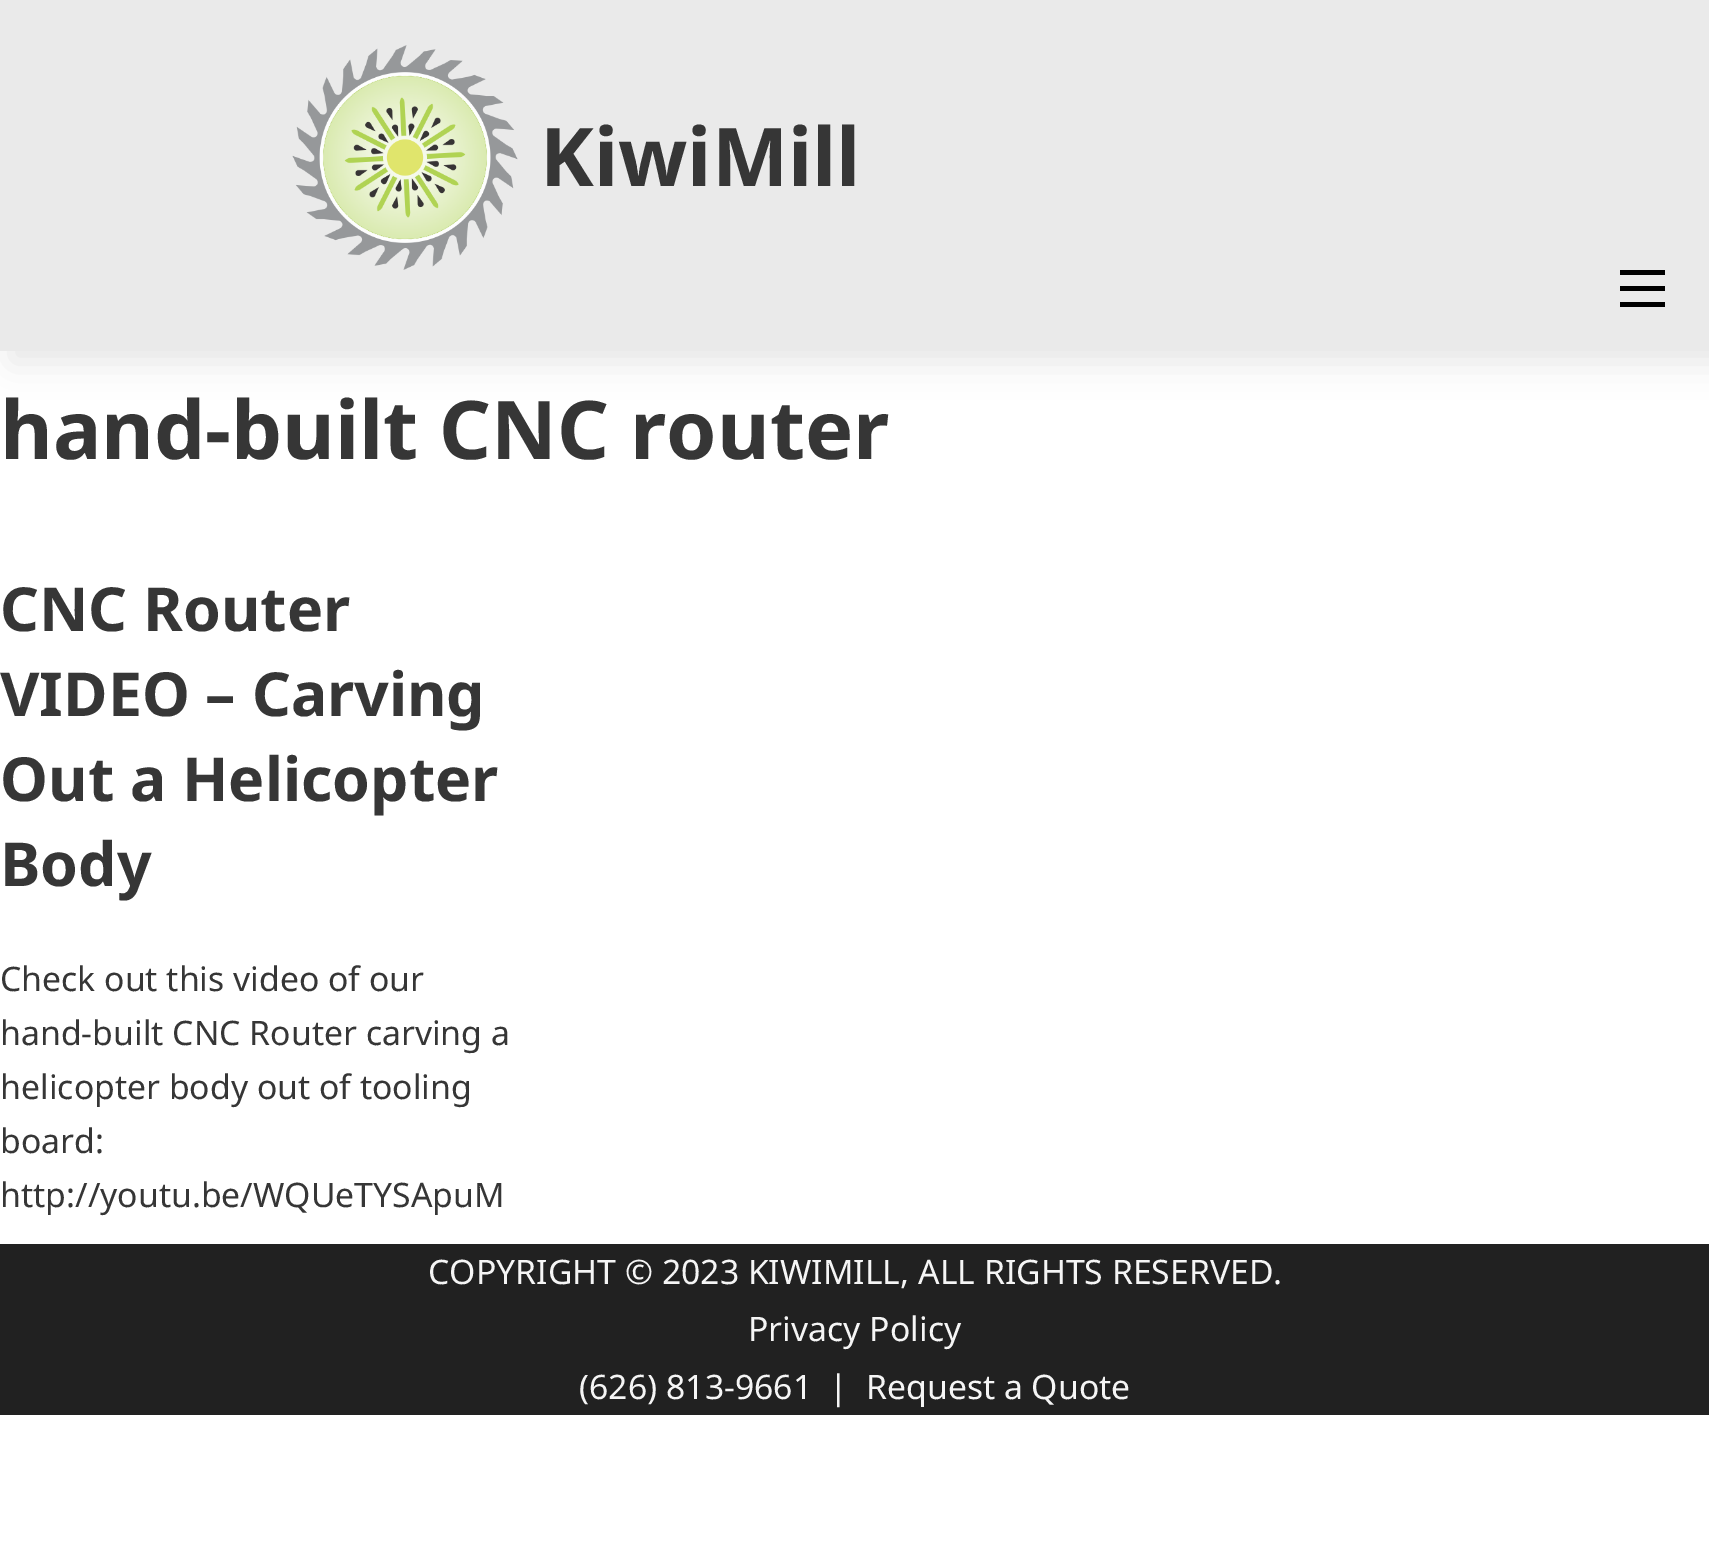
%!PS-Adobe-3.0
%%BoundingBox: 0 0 1709 1546
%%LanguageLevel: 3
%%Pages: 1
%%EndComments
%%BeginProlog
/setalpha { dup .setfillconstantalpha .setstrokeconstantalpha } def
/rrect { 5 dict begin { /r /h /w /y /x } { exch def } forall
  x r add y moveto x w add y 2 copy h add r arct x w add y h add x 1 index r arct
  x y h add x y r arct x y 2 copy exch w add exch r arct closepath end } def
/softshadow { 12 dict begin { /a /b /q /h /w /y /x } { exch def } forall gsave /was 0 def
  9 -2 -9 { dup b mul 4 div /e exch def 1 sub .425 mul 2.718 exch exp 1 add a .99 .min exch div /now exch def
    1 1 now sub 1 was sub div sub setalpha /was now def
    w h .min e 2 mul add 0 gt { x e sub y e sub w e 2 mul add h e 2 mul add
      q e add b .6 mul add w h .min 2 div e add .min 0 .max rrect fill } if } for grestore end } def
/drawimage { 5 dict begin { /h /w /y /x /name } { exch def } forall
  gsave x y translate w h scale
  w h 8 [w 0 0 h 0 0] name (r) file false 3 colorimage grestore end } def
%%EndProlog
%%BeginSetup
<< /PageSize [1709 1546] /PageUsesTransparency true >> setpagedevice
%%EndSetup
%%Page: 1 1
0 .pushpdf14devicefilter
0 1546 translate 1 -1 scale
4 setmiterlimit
1 setgray
0 0 1709 1546 rectfill
0 setgray
11 11 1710 351 0 17 0.1 softshadow
0.918 setgray
0 0 1709 351 rectfill
(images/1.raw) 292 45 226 225 drawimage
0 setgray
1620 270 45 5 rectfill
1620 286 45 5 rectfill
1620 302 45 5 rectfill
0.129 setgray
0 1244 1709 171 rectfill
/NotoSans-Bold [81 0 0 -81 0 0] selectfont
0.212 setgray
540 186 moveto (KiwiMill) show
0 459 moveto (hand-built CNC router) show
/NotoSans-Bold [60.75 0 0 -60.75 0 0] selectfont
0 631 moveto (CNC Router) show
0 716 moveto (VIDEO – Carving) show
0 801 moveto (Out a Helicopter) show
0 886 moveto (Body) show
/NotoSans-Regular [33.75 0 0 -33.75 0 0] selectfont
0 991 moveto (Check out this video of our) show
0 1045 moveto (hand-built CNC Router carving a) show
0 1099 moveto (helicopter body out of tooling) show
0 1153 moveto (board:) show
0 1207 moveto (http://youtu.be/WQUeTYSApuM) show
0.961 setgray
428 1284 moveto (COPYRIGHT © 2023 KIWIMILL, ALL RIGHTS RESERVED.) show
748 1341 moveto (Privacy Policy) show
579 1399 moveto (\(626\) 813-9661  |) show
866 1399 moveto (Request a Quote) show
.poppdf14devicefilter showpage
%%EOF
